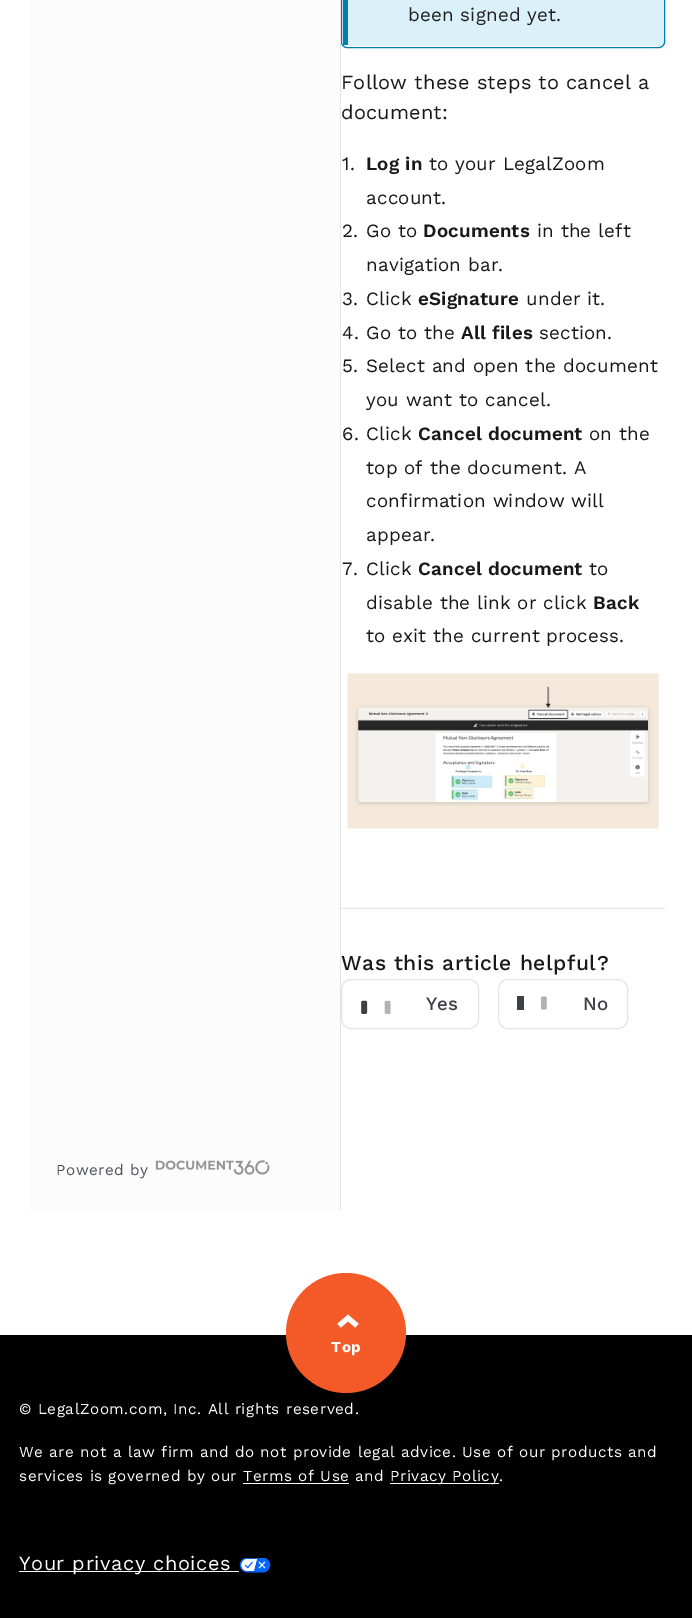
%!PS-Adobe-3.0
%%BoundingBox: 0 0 692 1618
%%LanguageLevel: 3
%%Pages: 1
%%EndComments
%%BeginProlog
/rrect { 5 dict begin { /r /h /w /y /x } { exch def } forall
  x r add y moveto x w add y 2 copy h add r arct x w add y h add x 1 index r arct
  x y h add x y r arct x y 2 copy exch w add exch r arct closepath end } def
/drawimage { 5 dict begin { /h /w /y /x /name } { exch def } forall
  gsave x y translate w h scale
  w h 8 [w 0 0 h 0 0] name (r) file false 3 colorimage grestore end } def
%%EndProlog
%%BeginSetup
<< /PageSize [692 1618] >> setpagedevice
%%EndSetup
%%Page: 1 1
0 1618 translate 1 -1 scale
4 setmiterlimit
1 setgray
0 0 692 1618 rectfill
0.855 0.945 0.98 setrgbcolor
newpath 348 -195 moveto 659 -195 lineto 662 -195 664 -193 664 -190 curveto 664 41 lineto 664 44 662 46 659 46 curveto 348 46 lineto closepath fill
0 0.494 0.702 setrgbcolor
341.5 -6.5 323 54 5.5 rrect stroke
343 0 5 45 rectfill
(images/1.raw) 347 673 312 156 drawimage
0.894 0.894 0.906 setrgbcolor
341 908 324 1 rectfill
341.5 979.5 137 49 9.5 rrect stroke
(images/2.raw) 361 1000 7 14 drawimage
(images/3.raw) 361 1000 30 14 drawimage
498.5 979.5 129 49 9.5 rrect stroke
0.247 0.247 0.275 setrgbcolor
517 996 7 14 rectfill
(images/4.raw) 540 996 7 14 drawimage
0.894 0.894 0.906 setrgbcolor
340 0 1 1210 rectfill
0.988 setgray
29 0 311 1210 rectfill
(images/5.raw) 155 1160 115 15 drawimage
0 setgray
0 1335 692 283 rectfill
0.957 0.353 0.153 setrgbcolor
newpath 346 1333 60 0 360 arc closepath fill
1 setgray
5 setlinewidth
2 setlinecap
newpath 341 1324 moveto 348 1318 lineto 355 1324 lineto stroke
390 1483 109 1 rectfill
243 1483 106 1 rectfill
19 1571 220 1 rectfill
(images/6.raw) 239 1558 32 15 drawimage
/WorkSans-Regular [18.75 0 0 -18.75 0 0] selectfont
0.137 0.122 0.125 setrgbcolor
408 21 moveto 0.2 0 (been signed yet.) ashow
/WorkSans-Regular [20 0 0 -20 0 0] selectfont
0.094 0.094 0.106 setrgbcolor
341 89 moveto 0.2 0 (Follow these steps to cancel a) ashow
341 119 moveto 0.2 0 (document:) ashow
/WorkSans-Regular [18.75 0 0 -18.75 0 0] selectfont
342 170 moveto 0.2 0 (1.) ashow
/WorkSans-SemiBold [18.75 0 0 -18.75 0 0] selectfont
366 170 moveto 0.2 0 (Log in) ashow
/WorkSans-Regular [18.75 0 0 -18.75 0 0] selectfont
429 170 moveto 0.2 0 (to your LegalZoom) ashow
366 204 moveto 0.2 0 (account.) ashow
342 237 moveto 0.2 0 (2.) ashow
366 237 moveto 0.2 0 (Go to) ashow
/WorkSans-SemiBold [18.75 0 0 -18.75 0 0] selectfont
423 237 moveto 0.2 0 (Documents) ashow
/WorkSans-Regular [18.75 0 0 -18.75 0 0] selectfont
537 237 moveto 0.2 0 (in the left) ashow
366 271 moveto 0.2 0 (navigation bar.) ashow
342 305 moveto 0.2 0 (3.) ashow
366 305 moveto 0.2 0 (Click) ashow
/WorkSans-SemiBold [18.75 0 0 -18.75 0 0] selectfont
418 305 moveto 0.2 0 (eSignature) ashow
/WorkSans-Regular [18.75 0 0 -18.75 0 0] selectfont
526 305 moveto 0.2 0 (under it.) ashow
342 339 moveto 0.2 0 (4.) ashow
366 339 moveto 0.2 0 (Go to the) ashow
/WorkSans-SemiBold [18.75 0 0 -18.75 0 0] selectfont
461 339 moveto 0.2 0 (All files) ashow
/WorkSans-Regular [18.75 0 0 -18.75 0 0] selectfont
539 339 moveto 0.2 0 (section.) ashow
342 372 moveto 0.2 0 (5.) ashow
366 372 moveto 0.2 0 (Select and open the document) ashow
366 406 moveto 0.2 0 (you want to cancel.) ashow
342 440 moveto 0.2 0 (6.) ashow
366 440 moveto 0.2 0 (Click) ashow
/WorkSans-SemiBold [18.75 0 0 -18.75 0 0] selectfont
418 440 moveto 0.2 0 (Cancel document) ashow
/WorkSans-Regular [18.75 0 0 -18.75 0 0] selectfont
589 440 moveto 0.2 0 (on the) ashow
366 474 moveto 0.2 0 (top of the document. A) ashow
366 507 moveto 0.2 0 (confirmation window will) ashow
366 541 moveto 0.2 0 (appear.) ashow
342 575 moveto 0.2 0 (7.) ashow
366 575 moveto 0.2 0 (Click) ashow
/WorkSans-SemiBold [18.75 0 0 -18.75 0 0] selectfont
418 575 moveto 0.2 0 (Cancel document) ashow
/WorkSans-Regular [18.75 0 0 -18.75 0 0] selectfont
589 575 moveto 0.2 0 (to) ashow
366 609 moveto 0.2 0 (disable the link or click) ashow
/WorkSans-SemiBold [18.75 0 0 -18.75 0 0] selectfont
593 609 moveto 0.2 0 (Back) ashow
/WorkSans-Regular [18.75 0 0 -18.75 0 0] selectfont
366 642 moveto 0.2 0 (to exit the current process.) ashow
/WorkSans-Medium [21.1 0 0 -21.1 0 0] selectfont
341 970 moveto 0.55 0 (Was this article helpful?) ashow
/WorkSans-Medium [18.75 0 0 -18.75 0 0] selectfont
0.247 0.247 0.275 setrgbcolor
426 1010 moveto (Yes) show
583 1010 moveto (No) show
/WorkSans-Regular [15.25 0 0 -15.25 0 0] selectfont
0.318 0.322 0.361 setrgbcolor
56 1175 moveto 0.55 0 (Powered by) ashow
/WorkSans-Bold [15.25 0 0 -15.25 0 0] selectfont
1 setgray
331 1352 moveto 0.55 0 (Top) ashow
/WorkSans-Regular [15.25 0 0 -15.25 0 0] selectfont
19 1414 moveto 0.55 0 (© LegalZoom.com, Inc. All rights reserved.) ashow
19 1457 moveto 0.55 0 (We are not a law firm and do not provide legal advice. Use of our products and) ashow
19 1481 moveto 0.55 0 (services is governed by our Terms of Use and) ashow
390 1481 moveto 0.55 0 (Privacy Policy.) ashow
/WorkSans-Regular [20 0 0 -20 0 0] selectfont
19 1570 moveto 0.55 0 (Your privacy choices) ashow
showpage
%%EOF
